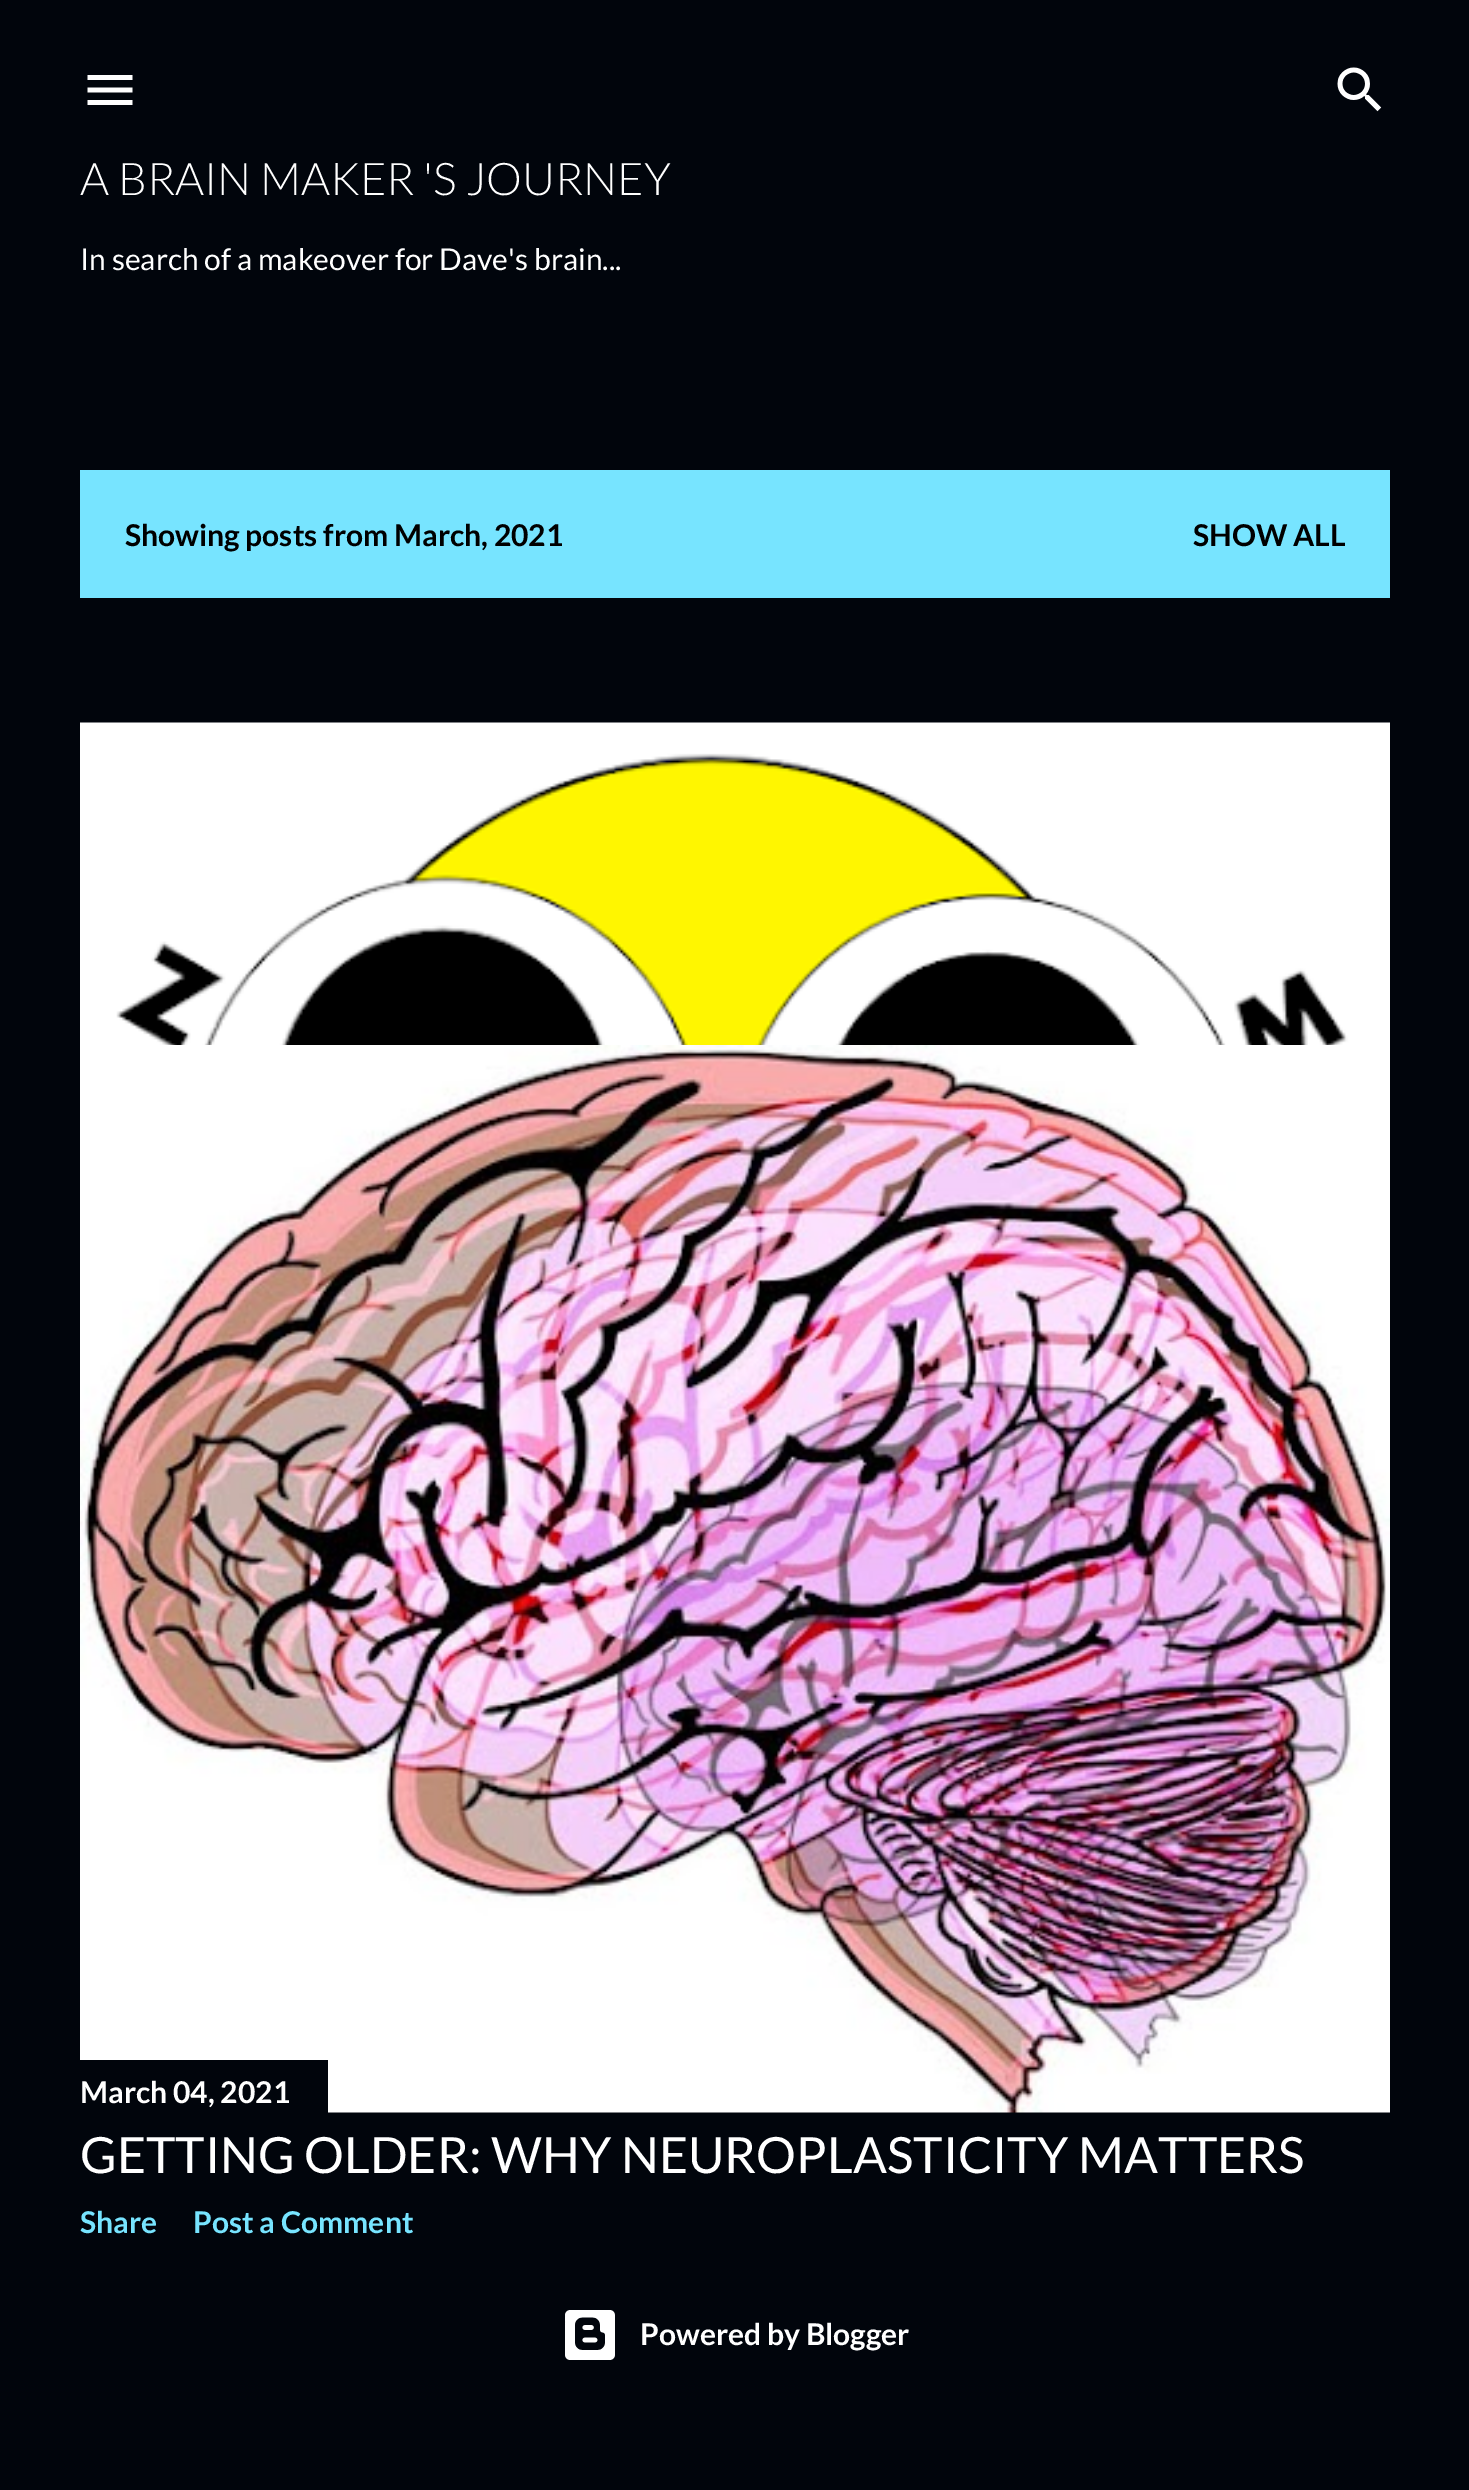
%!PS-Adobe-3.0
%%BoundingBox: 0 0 1469 2490
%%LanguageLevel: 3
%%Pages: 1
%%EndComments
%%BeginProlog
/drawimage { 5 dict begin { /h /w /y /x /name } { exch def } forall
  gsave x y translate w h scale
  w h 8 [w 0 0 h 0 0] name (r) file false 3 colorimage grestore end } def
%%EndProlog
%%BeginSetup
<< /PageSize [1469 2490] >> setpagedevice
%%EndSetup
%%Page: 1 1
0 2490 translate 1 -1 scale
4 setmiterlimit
0.004 0.02 0.047 setrgbcolor
0 0 1469 2490 rectfill
(images/1.raw) 87 75 46 30 drawimage
(images/2.raw) 1337 67 45 45 drawimage
0.467 0.894 1 setrgbcolor
80 470 1310 128 rectfill
(images/3.raw) 80 722 1310 323 drawimage
(images/4.raw) 80 1045 1310 1068 drawimage
0.004 0.02 0.047 setrgbcolor
80 2060 248 53 rectfill
(images/5.raw) 565 2310 50 50 drawimage
/Lato-Light [45 0 0 -45 0 0] selectfont
1 setgray
80 195 moveto (A BRAIN MAKER 'S JOURNEY) show
/Lato-Regular [30 0 0 -30 0 0] selectfont
80 270 moveto (In search of a makeover for Dave's brain...) show
/Lato-Bold [30 0 0 -30 0 0] selectfont
0 setgray
125 546 moveto (Showing posts from March, 2021) show
1193 546 moveto (SHOW ALL) show
1 setgray
80 2103 moveto (March 04, 2021) show
/Lato-Regular [50 0 0 -50 0 0] selectfont
80 2173 moveto (GETTING OLDER: WHY NEUROPLASTICITY MATTERS) show
/Lato-Bold [30 0 0 -30 0 0] selectfont
0.467 0.894 1 setrgbcolor
80 2233 moveto (Share) show
193 2233 moveto (Post a Comment) show
1 setgray
640 2345 moveto (Powered by Blogger) show
showpage
%%EOF
